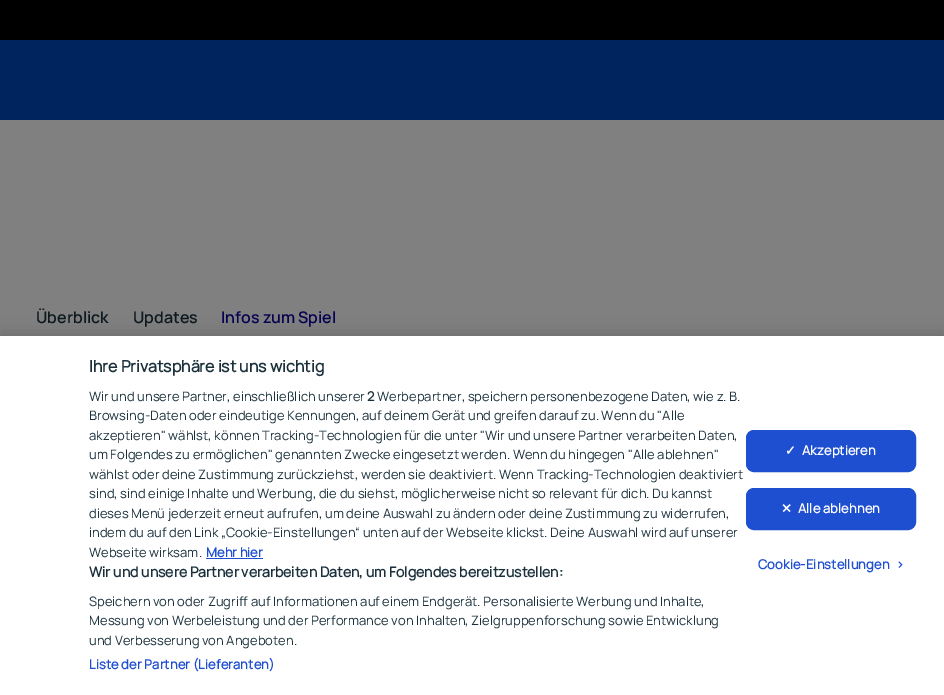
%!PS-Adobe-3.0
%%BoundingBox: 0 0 944 695
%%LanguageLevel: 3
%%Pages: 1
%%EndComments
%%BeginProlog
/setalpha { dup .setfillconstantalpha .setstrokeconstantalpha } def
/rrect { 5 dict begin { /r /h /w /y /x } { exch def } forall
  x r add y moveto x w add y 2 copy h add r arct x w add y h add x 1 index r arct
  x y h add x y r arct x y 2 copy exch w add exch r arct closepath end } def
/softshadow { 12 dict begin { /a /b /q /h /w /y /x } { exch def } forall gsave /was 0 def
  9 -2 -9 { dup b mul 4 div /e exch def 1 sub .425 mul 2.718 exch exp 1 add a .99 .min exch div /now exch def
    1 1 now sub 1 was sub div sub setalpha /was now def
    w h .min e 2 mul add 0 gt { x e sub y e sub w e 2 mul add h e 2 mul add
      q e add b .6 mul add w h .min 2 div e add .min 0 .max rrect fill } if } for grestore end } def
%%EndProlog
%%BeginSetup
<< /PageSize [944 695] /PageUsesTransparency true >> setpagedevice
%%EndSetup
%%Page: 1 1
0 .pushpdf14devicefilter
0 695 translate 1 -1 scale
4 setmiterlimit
0.502 setgray
0 0 944 695 rectfill
0 setgray
0 0 944 40 rectfill
0 0.141 0.369 setrgbcolor
0 40 944 80 rectfill
0 setgray
0 336 944 359 0 9 0.2 softshadow
1 setgray
0 336 944 359 rectfill
0.118 0.31 0.816 setrgbcolor
206 558 57 1 rectfill
746.5 430.5 169 41 7.5 rrect gsave fill grestore
stroke
746.5 488.5 169 41 7.5 rrect gsave fill grestore
stroke
/Manrope-SemiBold [16 0 0 -16 0 0] selectfont
0.051 0.098 0.118 setrgbcolor
36 323 moveto (Überblick) show
133 323 moveto (Updates) show
0.031 0.012 0.314 setrgbcolor
221 323 moveto (Infos zum Spiel) show
/Manrope-Bold [16 0 0 -16 0 0] selectfont
0.102 0.192 0.235 setrgbcolor
89 372 moveto (Ihre Privatsphäre ist uns wichtig) show
/Manrope-Regular [13 0 0 -13 0 0] selectfont
89 401 moveto (Wir und unsere Partner, einschließlich unserer) show
/Manrope-Bold [13 0 0 -13 0 0] selectfont
367 401 moveto (2) show
/Manrope-Regular [13 0 0 -13 0 0] selectfont
377 401 moveto (Werbepartner, speichern personenbezogene Daten, wie z. B.) show
89 420 moveto (Browsing-Daten oder eindeutige Kennungen, auf deinem Gerät und greifen darauf zu. Wenn du "Alle) show
89 440 moveto (akzeptieren" wählst, können Tracking-Technologien für die unter "Wir und unsere Partner verarbeiten Daten,) show
89 459 moveto (um Folgendes zu ermöglichen" genannten Zwecke eingesetzt werden. Wenn du hingegen "Alle ablehnen") show
89 479 moveto (wählst oder deine Zustimmung zurückziehst, werden sie deaktiviert. Wenn Tracking-Technologien deaktiviert) show
89 498 moveto (sind, sind einige Inhalte und Werbung, die du siehst, möglicherweise nicht so relevant für dich. Du kannst) show
89 518 moveto (dieses Menü jederzeit erneut aufrufen, um deine Auswahl zu ändern oder deine Zustimmung zu widerrufen,) show
89 537 moveto (indem du auf den Link „Cookie-Einstellungen“ unten auf der Webseite klickst. Deine Auswahl wird auf unserer) show
89 557 moveto (Webseite wirksam.) show
/Manrope-Bold [13 0 0 -13 0 0] selectfont
0.118 0.31 0.816 setrgbcolor
206 557 moveto (Mehr hier) show
/Manrope-Bold [14.1 0 0 -14.1 0 0] selectfont
0.102 0.192 0.235 setrgbcolor
89 577 moveto (Wir und unsere Partner verarbeiten Daten, um Folgendes bereitzustellen:) show
/Manrope-Regular [13 0 0 -13 0 0] selectfont
89 606 moveto (Speichern von oder Zugriff auf Informationen auf einem Endgerät. Personalisierte Werbung und Inhalte,) show
89 625 moveto (Messung von Werbeleistung und der Performance von Inhalten, Zielgruppenforschung sowie Entwicklung) show
89 645 moveto (und Verbesserung von Angeboten.) show
/Manrope-Bold [13 0 0 -13 0 0] selectfont
0.118 0.31 0.816 setrgbcolor
89 669 moveto 0.1 0 (Liste der Partner \(Lieferanten\)) ashow
/DejaVuSans-Bold [13 0 0 -13 0 0] selectfont
1 setgray
785 455 moveto 0.1 0 (✓) ashow
/Manrope-Bold [13 0 0 -13 0 0] selectfont
802 455 moveto 0.1 0 (Akzeptieren) ashow
/DejaVuSans-Bold [13 0 0 -13 0 0] selectfont
781 513 moveto 0.1 0 (✕) ashow
/Manrope-Bold [13 0 0 -13 0 0] selectfont
798 513 moveto 0.1 0 (Alle ablehnen) ashow
0.118 0.31 0.816 setrgbcolor
758 569 moveto 0.1 0 (Cookie-Einstellungen) ashow
896 569 moveto 0.1 0 (>) ashow
.poppdf14devicefilter showpage
%%EOF
